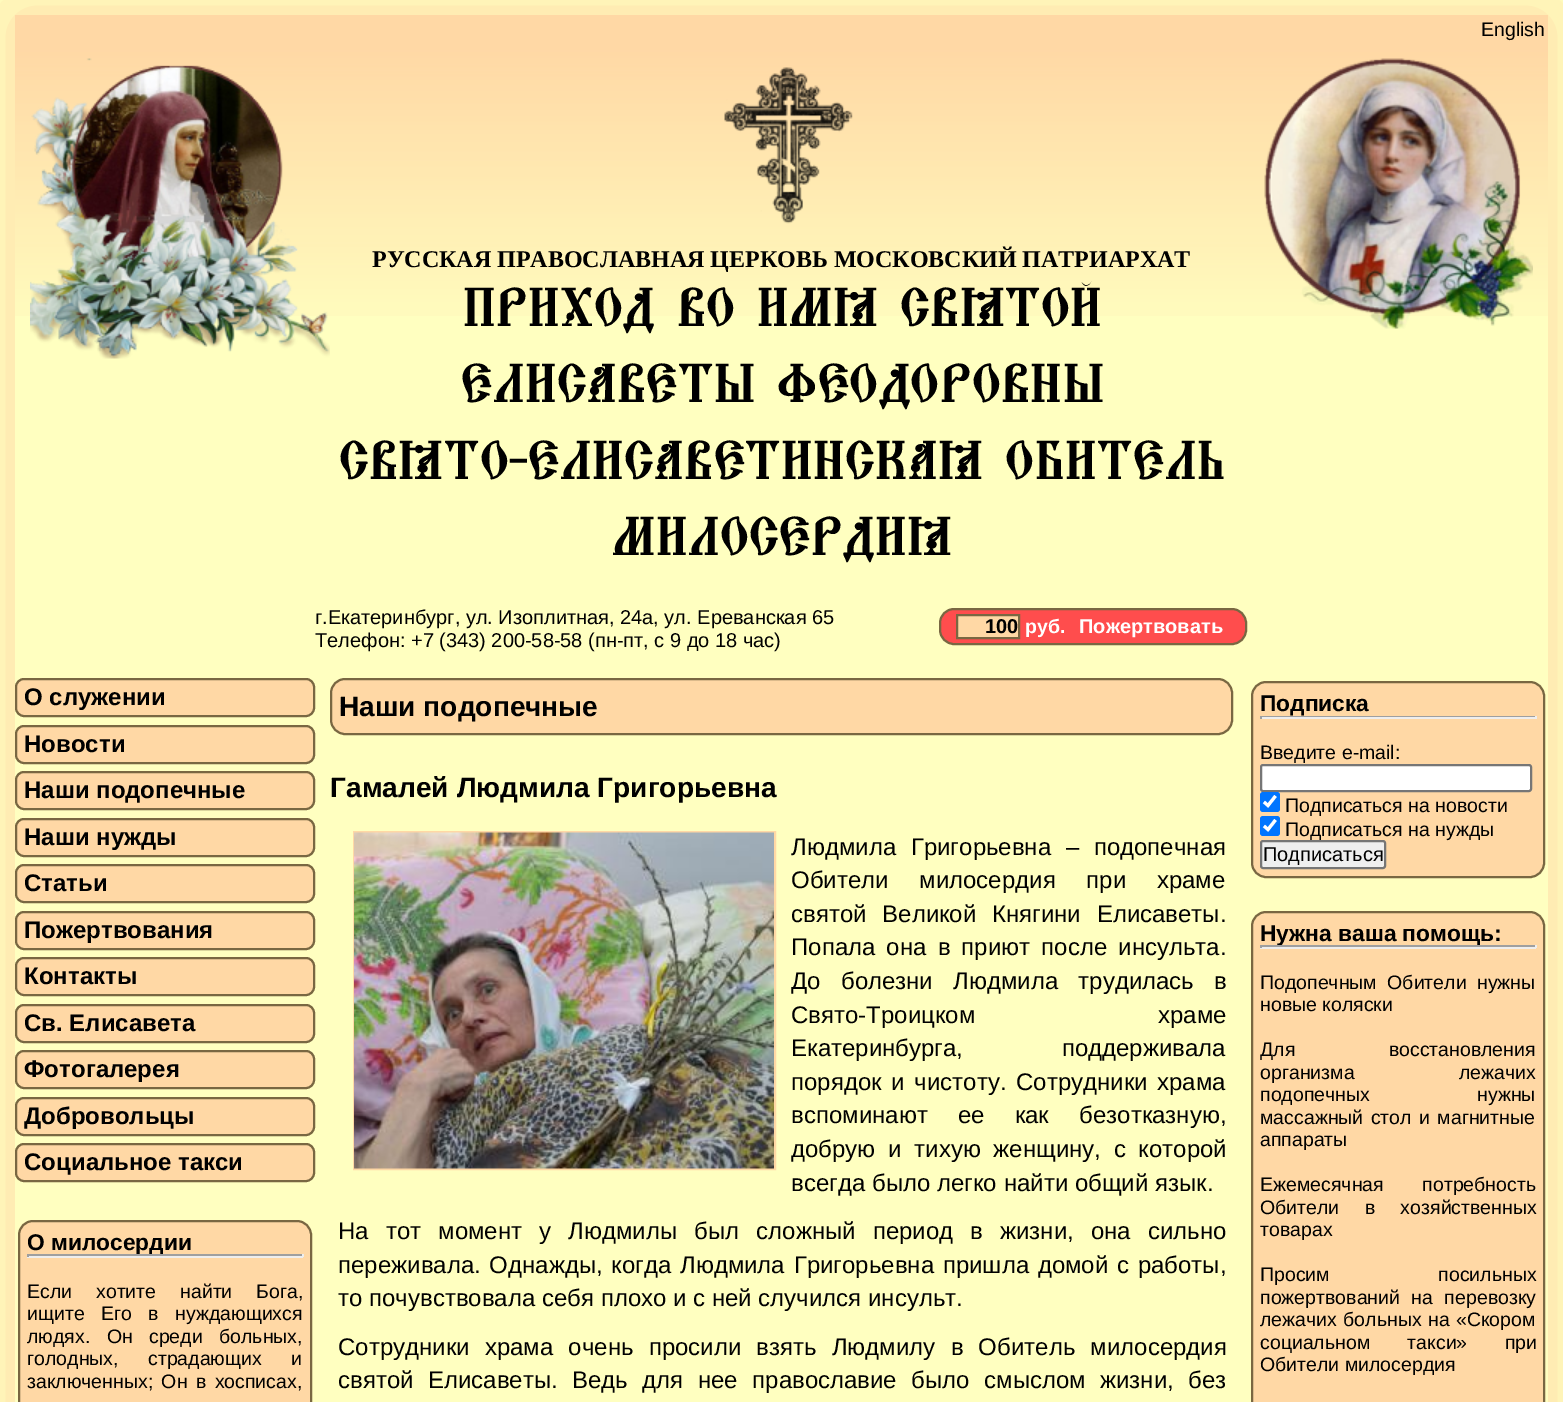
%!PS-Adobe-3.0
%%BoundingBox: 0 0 1563 1402
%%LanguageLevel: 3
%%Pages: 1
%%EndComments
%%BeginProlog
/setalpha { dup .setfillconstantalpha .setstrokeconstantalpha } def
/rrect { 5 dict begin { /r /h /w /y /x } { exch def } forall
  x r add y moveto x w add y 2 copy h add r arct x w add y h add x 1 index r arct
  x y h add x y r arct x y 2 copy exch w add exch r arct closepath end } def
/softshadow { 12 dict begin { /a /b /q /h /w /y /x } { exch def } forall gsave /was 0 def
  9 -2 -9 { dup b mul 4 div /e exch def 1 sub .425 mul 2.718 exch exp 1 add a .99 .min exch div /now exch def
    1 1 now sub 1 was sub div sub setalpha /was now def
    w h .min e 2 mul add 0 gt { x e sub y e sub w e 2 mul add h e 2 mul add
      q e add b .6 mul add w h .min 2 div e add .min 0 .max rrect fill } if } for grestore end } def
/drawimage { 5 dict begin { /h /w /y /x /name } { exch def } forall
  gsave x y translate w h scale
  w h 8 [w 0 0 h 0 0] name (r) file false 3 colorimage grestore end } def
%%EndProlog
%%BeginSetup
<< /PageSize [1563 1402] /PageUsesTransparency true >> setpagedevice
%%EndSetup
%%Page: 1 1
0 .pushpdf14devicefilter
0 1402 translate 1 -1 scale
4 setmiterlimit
1 1 0.753 setrgbcolor
0 0 1563 1402 rectfill
gsave
newpath 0 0 moveto 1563 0 lineto 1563 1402 lineto 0 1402 lineto closepath 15 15 moveto 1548 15 lineto 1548 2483 lineto 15 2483 lineto closepath eoclip newpath
1 0.847 0.647 setrgbcolor
15 15 1533 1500 0 37.5 1 softshadow
grestore
1 0.847 0.647 setrgbcolor
15 15 1533 29 rectfill
(images/1.raw) 15 44 1533 272 drawimage
(images/2.raw) 30 58 300 301 drawimage
(images/3.raw) 1264 58 269 271 drawimage
(images/4.raw) 724 67 129 157 drawimage
1 0.302 0.302 setrgbcolor
940 609 306 35 14 rrect gsave fill grestore
0.475 0.404 0.259 setrgbcolor
2 setlinewidth
stroke
1 0.847 0.647 setrgbcolor
newpath 957 615 moveto 1019 615 lineto 1019 638 lineto 957 638 lineto closepath gsave fill grestore
0.475 0.404 0.259 setrgbcolor
stroke
1 0.847 0.647 setrgbcolor
16 679 298 37 8 rrect gsave fill grestore
0.475 0.404 0.259 setrgbcolor
stroke
1 0.847 0.647 setrgbcolor
16 726 298 37 8 rrect gsave fill grestore
0.475 0.404 0.259 setrgbcolor
stroke
1 0.847 0.647 setrgbcolor
16 772 298 37 8 rrect gsave fill grestore
0.475 0.404 0.259 setrgbcolor
stroke
1 0.847 0.647 setrgbcolor
16 819 298 37 8 rrect gsave fill grestore
0.475 0.404 0.259 setrgbcolor
stroke
1 0.847 0.647 setrgbcolor
16 865 298 37 8 rrect gsave fill grestore
0.475 0.404 0.259 setrgbcolor
stroke
1 0.847 0.647 setrgbcolor
16 912 298 37 8 rrect gsave fill grestore
0.475 0.404 0.259 setrgbcolor
stroke
1 0.847 0.647 setrgbcolor
16 958 298 37 8 rrect gsave fill grestore
0.475 0.404 0.259 setrgbcolor
stroke
1 0.847 0.647 setrgbcolor
16 1005 298 37 8 rrect gsave fill grestore
0.475 0.404 0.259 setrgbcolor
stroke
1 0.847 0.647 setrgbcolor
16 1051 298 37 8 rrect gsave fill grestore
0.475 0.404 0.259 setrgbcolor
stroke
1 0.847 0.647 setrgbcolor
16 1098 298 37 8 rrect gsave fill grestore
0.475 0.404 0.259 setrgbcolor
stroke
1 0.847 0.647 setrgbcolor
16 1144 298 37 8 rrect gsave fill grestore
0.475 0.404 0.259 setrgbcolor
stroke
1 0.847 0.647 setrgbcolor
19 1221 292 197 14 rrect gsave fill grestore
0.475 0.404 0.259 setrgbcolor
stroke
1 0.847 0.647 setrgbcolor
331 679 901 55 14 rrect gsave fill grestore
0.475 0.404 0.259 setrgbcolor
stroke
1 0.847 0.647 setrgbcolor
354 832 421 337 rectstroke
(images/5.raw) 354 832 420 337 drawimage
1252 682 292 195 14 rrect gsave fill grestore
0.475 0.404 0.259 setrgbcolor
stroke
0.624 setgray
1260 716 276 1 rectfill
0.933 setgray
1535 716 2 3 rectfill
1260 717 276 2 rectfill
0.624 setgray
1260 716 2 3 rectfill
1 setgray
1261 765 270 26 2 rrect gsave fill grestore
0.463 setgray
stroke
0 0.459 1 setrgbcolor
1260 792 20 20 3 rrect fill
1 setgray
3.1 setlinewidth
newpath 1264 802 moveto 1268 805.5 lineto 1275.5 796 lineto stroke
0 0.459 1 setrgbcolor
1260 816 20 20 3 rrect fill
1 setgray
newpath 1264 826 moveto 1268 829.5 lineto 1275.5 820 lineto stroke
1 0.847 0.647 setrgbcolor
1252 912 292 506 14 rrect gsave fill grestore
0.475 0.404 0.259 setrgbcolor
2 setlinewidth
stroke
/LiberationSans-Regular [19.5 0 0 -19.5 0 0] selectfont
0 setgray
1481 36 moveto (English) show
/LiberationSerif-Bold [24 0 0 -24 0 0] selectfont
372 267 moveto (РУССКАЯ ПРАВОСЛАВНАЯ ЦЕРКОВЬ МОСКОВСКИЙ ПАТРИАРХАТ) show
/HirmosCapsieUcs-Bold [48 0 0 -48 0 0] selectfont
462 326 moveto (Приход во имя святой) show
460 402 moveto (Елисаветы Феодоровны) show
338 479 moveto (Свято-Елисаветинская Обитель) show
611 555 moveto (милосердия) show
/LiberationSans-Regular [20 0 0 -20 0 0] selectfont
315 624 moveto (г.Екатеринбург, ул. Изоплитная, 24а, ул. Ереванская 65) show
315 647 moveto (Телефон: +7 \(343\) 200-58-58 \(пн-пт, с 9 до 18 час\)) show
/LiberationSans-Bold [20 0 0 -20 0 0] selectfont
985 633 moveto (100) show
/LiberationSans-Bold [19.5 0 0 -19.5 0 0] selectfont
1 setgray
1025 633 moveto (руб.) show
/LiberationSans-Bold [20 0 0 -20 0 0] selectfont
1079 633 moveto (Пожертвовать) show
/LiberationSans-Bold [24 0 0 -24 0 0] selectfont
0 setgray
24 705 moveto (О служении) show
24 752 moveto (Новости) show
24 798 moveto (Наши подопечные) show
24 845 moveto (Наши нужды) show
24 891 moveto (Статьи) show
24 938 moveto (Пожертвования) show
24 984 moveto (Контакты) show
24 1031 moveto (Cв. Елисавета) show
24 1077 moveto (Фотогалерея) show
24 1124 moveto (Добровольцы) show
24 1170 moveto (Социальное такси) show
/LiberationSans-Bold [22.75 0 0 -22.75 0 0] selectfont
27 1250 moveto (О милосердии) show
0.624 setgray
27 1254 276 2 rectfill
0.933 setgray
302 1254 2 3 rectfill
27 1256 276 2 rectfill
0.624 setgray
27 1254 2 3 rectfill
/LiberationSans-Regular [19.5 0 0 -19.5 0 0] selectfont
0 setgray
27 1298 moveto 18.5 0 32 (Если хотите найти Бога,) widthshow
27 1320 moveto 11 0 32 (ищите Его в нуждающихся) widthshow
27 1343 moveto 11 0 32 (людях. Он среди больных,) widthshow
27 1365 moveto 24 0 32 (голодных, страдающих и) widthshow
27 1388 moveto 3 0 32 (заключенных; Он в хосписах,) widthshow
/LiberationSans-Bold [28.1 0 0 -28.1 0 0] selectfont
339 716 moveto (Наши подопечные) show
330 797 moveto (Гамалей Людмила Григорьевна) show
/LiberationSans-Regular [24 0 0 -24 0 0] selectfont
791 855 moveto 8 0 32 (Людмила Григорьевна – подопечная) widthshow
791 888 moveto 24 0 32 (Обители милосердия при храме) widthshow
791 922 moveto 9 0 32 (святой Великой Княгини Елисаветы.) widthshow
791 955 moveto 4.5 0 32 (Попала она в приют после инсульта.) widthshow
791 989 moveto 13.5 0 32 (До болезни Людмила трудилась в) widthshow
791 1023 moveto 176 0 32 (Свято-Троицком храме) widthshow
791 1056 moveto 92 0 32 (Екатеринбурга, поддерживала) widthshow
791 1090 moveto 3 0 32 (порядок и чистоту. Сотрудники храма) widthshow
791 1123 moveto 23.5 0 32 (вспоминают ее как безотказную,) widthshow
791 1157 moveto 6 0 32 (добрую и тихую женщину, с которой) widthshow
791 1191 moveto (всегда было легко найти общий язык.) show
338 1239 moveto 10.4 0 32 (На тот момент у Людмилы был сложный период в жизни, она сильно) widthshow
338 1273 moveto 2 0 32 (переживала. Однажды, когда Людмила Григорьевна пришла домой с работы,) widthshow
338 1306 moveto (то почувствовала себя плохо и с ней случился инсульт.) show
338 1355 moveto 8.5 0 32 (Сотрудники храма очень просили взять Людмилу в Обитель милосердия) widthshow
338 1388 moveto 7.75 0 32 (святой Елисаветы. Ведь для нее православие было смыслом жизни, без) widthshow
/LiberationSans-Bold [22.75 0 0 -22.75 0 0] selectfont
1260 711 moveto (Подписка) show
/LiberationSans-Regular [19.5 0 0 -19.5 0 0] selectfont
1260 759 moveto (Введите e-mail:) show
1285 812 moveto (Подписаться на новости) show
1285 836 moveto (Подписаться на нужды) show
0.937 setgray
1261 841 124 27 2 rrect gsave fill grestore
0.463 setgray
stroke
/LiberationSans-Regular [20 0 0 -20 0 0] selectfont
0 setgray
1263 861 moveto (Подписаться) show
/LiberationSans-Bold [22.75 0 0 -22.75 0 0] selectfont
1260 941 moveto (Нужна ваша помощь:) show
0.624 setgray
1260 945 276 2 rectfill
0.933 setgray
1535 945 2 3 rectfill
1260 947 276 2 rectfill
0.624 setgray
1260 945 2 3 rectfill
/LiberationSans-Regular [19.5 0 0 -19.5 0 0] selectfont
0 setgray
1260 989 moveto 5 0 32 (Подопечным Обители нужны) widthshow
1260 1011 moveto (новые коляски) show
1260 1056 moveto 88 0 32 (Для восстановления) widthshow
1260 1079 moveto 99 0 32 (организма лежачих) widthshow
1260 1101 moveto 102 0 32 (подопечных нужны) widthshow
1260 1124 moveto 2 0 32 (массажный стол и магнитные) widthshow
1260 1146 moveto (аппараты) show
1260 1191 moveto 33 0 32 (Ежемесячная потребность) widthshow
1260 1214 moveto 20 0 32 (Обители в хозяйственных) widthshow
1260 1236 moveto (товарах) show
1260 1281 moveto 103 0 32 (Просим посильных) widthshow
1260 1304 moveto 6 0 32 (пожертвований на перевозку) widthshow
1260 1326 moveto 1 0 32 (лежачих больных на «Скором) widthshow
1260 1349 moveto 32 0 32 (социальном такси» при) widthshow
1260 1371 moveto (Обители милосердия) show
.poppdf14devicefilter showpage
%%EOF
